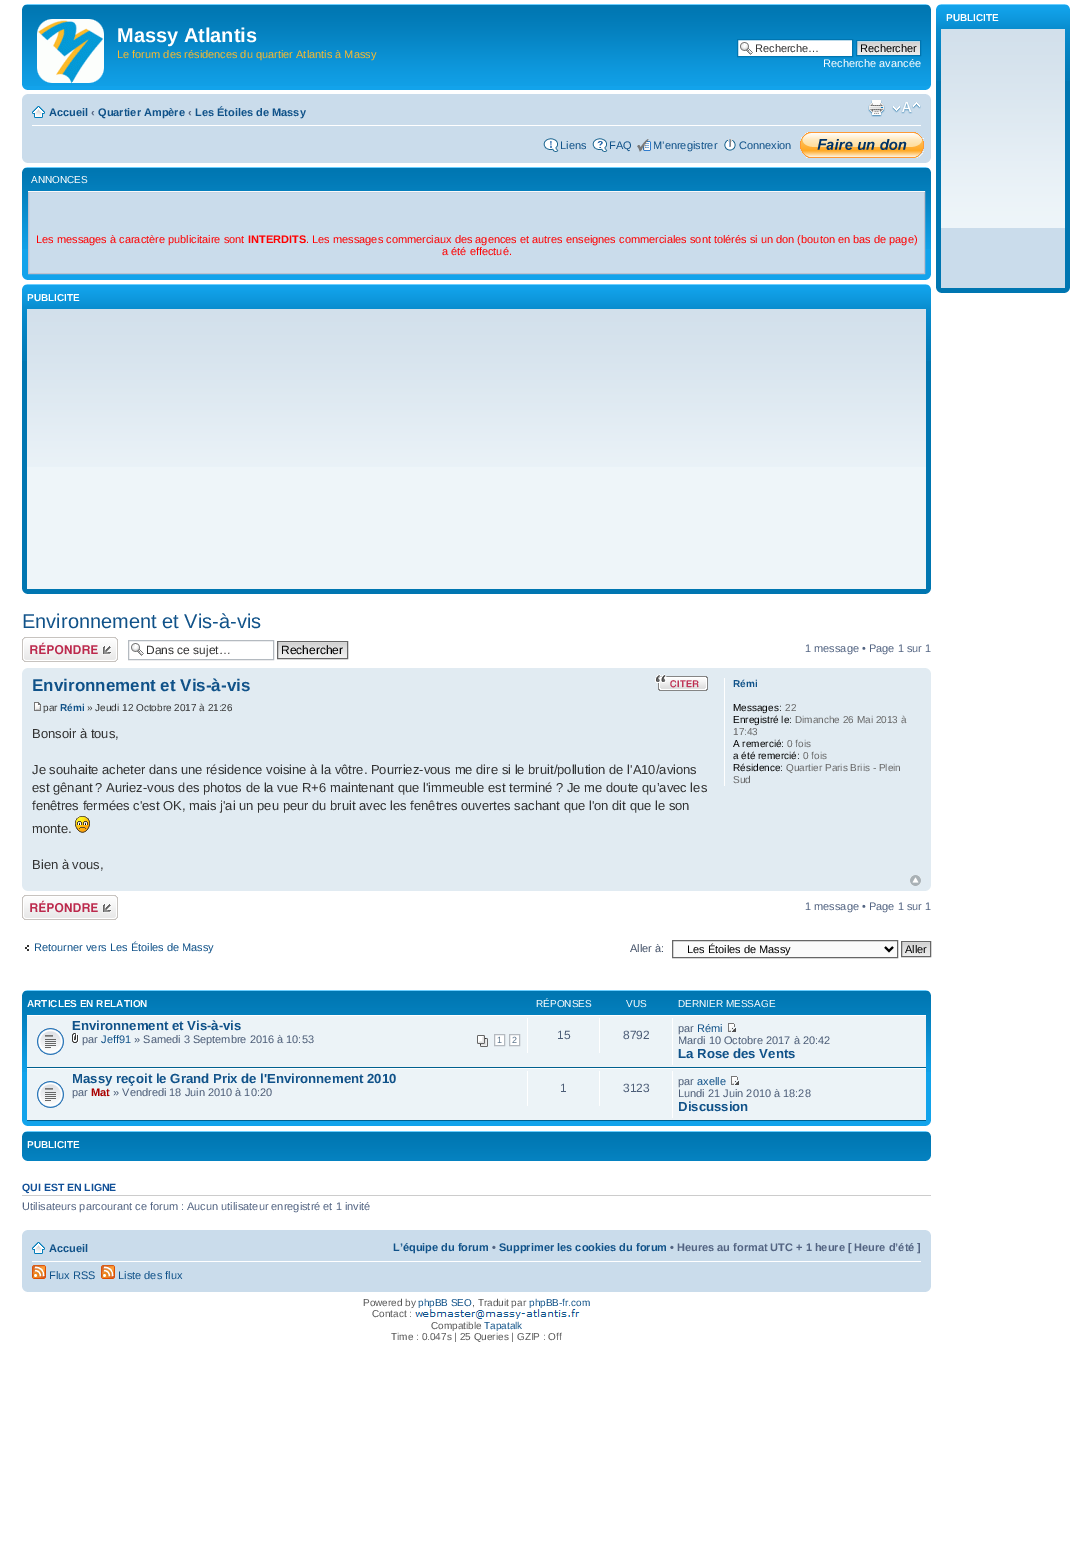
%!PS-Adobe-3.0
%%BoundingBox: 0 0 1092 1552
%%LanguageLevel: 3
%%Pages: 1
%%EndComments
%%BeginProlog
/drawimage { 5 dict begin { /h /w /y /x /name } { exch def } forall
  gsave x y translate w h scale
  w h 8 [w 0 0 h 0 0] name (r) file false 3 colorimage grestore end } def
%%EndProlog
%%BeginSetup
<< /PageSize [1092 1552] >> setpagedevice
%%EndSetup
%%Page: 1 1
0 1552 translate 1 -1 scale
4 setmiterlimit
1 setgray
0 0 1092 1552 rectfill
0 0.463 0.694 setrgbcolor
936 81 134 212 rectfill
(images/1.raw) 936 4 134 77 drawimage
(images/2.raw) 936 4 5 5 drawimage
(images/3.raw) 1065 4 5 5 drawimage
0.792 0.863 0.922 setrgbcolor
941 228 124 60 rectfill
(images/4.raw) 941 29 124 199 drawimage
(images/5.raw) 936 288 5 5 drawimage
(images/6.raw) 1065 288 5 5 drawimage
0.071 0.639 0.922 setrgbcolor
22 86 909 4 rectfill
(images/7.raw) 22 4 909 82 drawimage
(images/8.raw) 22 4 5 5 drawimage
(images/9.raw) 926 4 5 5 drawimage
(images/10.raw) 37 19 67 64 drawimage
1 setgray
738 40 114 16 rectfill
(images/11.raw) 740 42 13 13 drawimage
0 0.459 0.69 setrgbcolor
737.5 39.5 115 17 rectstroke
(images/12.raw) 857 41 63 14 drawimage
856.5 40.5 64 15 rectstroke
(images/13.raw) 22 85 5 5 drawimage
(images/14.raw) 926 85 5 5 drawimage
0.792 0.863 0.922 setrgbcolor
22 94 909 69 rectfill
(images/15.raw) 22 94 5 5 drawimage
(images/16.raw) 926 94 5 5 drawimage
1 setgray
32 125 889 1 rectfill
(images/17.raw) 32 106 13 12 drawimage
(images/18.raw) 868 100 17 17 drawimage
(images/19.raw) 892 102 29 12 drawimage
(images/20.raw) 543 138 16 14 drawimage
(images/21.raw) 592 138 16 14 drawimage
(images/22.raw) 637 139 14 13 drawimage
(images/23.raw) 724 139 12 12 drawimage
(images/24.raw) 800 132 124 26 drawimage
(images/25.raw) 22 158 5 5 drawimage
(images/26.raw) 926 158 5 5 drawimage
0.071 0.639 0.922 setrgbcolor
22 249 909 31 rectfill
(images/7.raw) 22 167 909 82 drawimage
(images/8.raw) 22 167 5 5 drawimage
(images/9.raw) 926 167 5 5 drawimage
0.792 0.863 0.922 setrgbcolor
newpath 28.5 191.5 moveto 924.5 191.5 lineto 924.5 273.5 lineto 28.5 273.5 lineto closepath gsave fill grestore
0.749 0.757 0.812 setrgbcolor
stroke
0.98 setgray
28 191 897 1 rectfill
(images/27.raw) 22 275 5 5 drawimage
(images/28.raw) 926 275 5 5 drawimage
0 0.463 0.694 setrgbcolor
22 361 909 233 rectfill
(images/29.raw) 22 284 909 77 drawimage
(images/2.raw) 22 284 5 5 drawimage
(images/3.raw) 926 284 5 5 drawimage
0.933 0.961 0.976 setrgbcolor
27 467 899 122 rectfill
(images/30.raw) 27 309 899 158 drawimage
(images/5.raw) 22 589 5 5 drawimage
(images/6.raw) 926 589 5 5 drawimage
(images/31.raw) 22 637 96 25 drawimage
(images/11.raw) 131 643 13 13 drawimage
0.706 0.729 0.753 setrgbcolor
128.5 640.5 145 19 rectstroke
(images/32.raw) 278 642 69 16 drawimage
0.4 setgray
277.5 641.5 70 17 rectstroke
0.882 0.922 0.949 setrgbcolor
22 668 909 223 rectfill
(images/33.raw) 22 668 5 5 drawimage
(images/34.raw) 926 668 5 5 drawimage
(images/35.raw) 655 674 10 8 drawimage
(images/36.raw) 656 675 52 16 drawimage
(images/37.raw) 34 702 7 9 drawimage
(images/38.raw) 75 816 15 17 drawimage
1 setgray
724 678 1 108 rectfill
(images/39.raw) 910 875 11 11 drawimage
(images/40.raw) 22 886 5 5 drawimage
(images/41.raw) 926 886 5 5 drawimage
(images/31.raw) 22 895 96 25 drawimage
(images/42.raw) 25 945 4 6 drawimage
0.98 setgray
newpath 672.5 940.5 moveto 897.5 940.5 lineto 897.5 957.5 lineto 672.5 957.5 lineto closepath gsave fill grestore
0.4 setgray
stroke
0 setgray
2 setlinewidth
newpath 885 947 moveto 889 951 lineto 893 947 lineto stroke
(images/43.raw) 902 942 28 14 drawimage
0.4 setgray
1 setlinewidth
901.5 941.5 29 15 rectstroke
0.071 0.639 0.922 setrgbcolor
22 1072 909 54 rectfill
(images/7.raw) 22 990 909 82 drawimage
(images/8.raw) 22 990 5 5 drawimage
(images/9.raw) 926 990 5 5 drawimage
0.925 0.953 0.969 setrgbcolor
27 1016 899 51 rectfill
1 setgray
27 1015 899 1 rectfill
0 0.376 0.561 setrgbcolor
27 1067 899 1 rectfill
(images/44.raw) 37 1028 27 27 drawimage
(images/45.raw) 72 1033 7 10 drawimage
(images/46.raw) 477 1035 11 12 drawimage
1 setgray
newpath 494.5 1034.5 moveto 504.5 1034.5 lineto 504.5 1045.5 lineto 494.5 1045.5 lineto closepath gsave fill grestore
0.706 0.729 0.753 setrgbcolor
stroke
1 setgray
newpath 509.5 1034.5 moveto 519.5 1034.5 lineto 519.5 1045.5 lineto 509.5 1045.5 lineto closepath gsave fill grestore
0.706 0.729 0.753 setrgbcolor
stroke
1 setgray
527 1018 1 35 rectfill
599 1018 1 35 rectfill
672 1018 1 47 rectfill
(images/47.raw) 728 1023 8 9 drawimage
0.925 0.953 0.969 setrgbcolor
27 1069 899 51 rectfill
1 setgray
27 1068 899 1 rectfill
0 0.376 0.561 setrgbcolor
27 1120 899 1 rectfill
(images/44.raw) 37 1081 27 27 drawimage
1 setgray
527 1071 1 35 rectfill
599 1071 1 35 rectfill
672 1071 1 47 rectfill
(images/47.raw) 731 1076 8 9 drawimage
(images/27.raw) 22 1121 5 5 drawimage
(images/28.raw) 926 1121 5 5 drawimage
(images/48.raw) 22 1131 909 30 drawimage
(images/8.raw) 22 1131 5 5 drawimage
(images/9.raw) 926 1131 5 5 drawimage
(images/49.raw) 22 1156 5 5 drawimage
(images/50.raw) 926 1156 5 5 drawimage
0.8 setgray
22 1195 909 1 rectfill
0.792 0.863 0.922 setrgbcolor
22 1230 909 62 rectfill
(images/15.raw) 22 1230 5 5 drawimage
(images/16.raw) 926 1230 5 5 drawimage
1 setgray
32 1261 889 1 rectfill
(images/17.raw) 32 1242 13 12 drawimage
(images/51.raw) 32 1265 14 14 drawimage
(images/51.raw) 101 1265 14 14 drawimage
(images/25.raw) 22 1287 5 5 drawimage
(images/26.raw) 926 1287 5 5 drawimage
(images/52.raw) 415 1309 165 10 drawimage
/LiberationSans-Bold [10 0 0 -10 0 0] selectfont
946 21 moveto (PUBLICITE) show
/LiberationSans-Bold [20 0 0 -20 0 0] selectfont
117 42 moveto (Massy Atlantis) show
/LiberationSans-Regular [11 0 0 -11 0 0] selectfont
0.988 0.729 0.173 setrgbcolor
117 58 moveto (Le forum des résidences du quartier Atlantis à Massy) show
0.2 setgray
755 52 moveto (Recherche…) show
0 setgray
860 52 moveto (Rechercher) show
1 setgray
823 67 moveto (Recherche avancée) show
/LiberationSans-Bold [11 0 0 -11 0 0] selectfont
0.063 0.322 0.537 setrgbcolor
49 116 moveto (Accueil) show
0.325 0.392 0.51 setrgbcolor
91 116 moveto (‹) show
0.063 0.322 0.537 setrgbcolor
98 116 moveto (Quartier Ampère) show
0.325 0.392 0.51 setrgbcolor
188 116 moveto (‹) show
0.063 0.322 0.537 setrgbcolor
195 116 moveto (Les Étoiles de Massy) show
/LiberationSans-Regular [11 0 0 -11 0 0] selectfont
560 149 moveto (Liens) show
609 149 moveto (FAQ) show
653 149 moveto (M’enregistrer) show
739 149 moveto (Connexion) show
/LiberationSans-Regular [10 0 0 -10 0 0] selectfont
1 setgray
31 183 moveto (ANNONCES) show
/LiberationSans-Regular [11 0 0 -11 0 0] selectfont
1 0 0 setrgbcolor
36 243 moveto (Les messages à caractère publicitaire sont) show
/LiberationSans-Bold [11 0 0 -11 0 0] selectfont
248 243 moveto (INTERDITS) show
/LiberationSans-Regular [11 0 0 -11 0 0] selectfont
306 243 moveto (. Les messages commerciaux des agences et autres enseignes commerciales sont tolérés si un don \(bouton en bas de page\)) show
442 255 moveto (a été effectué.) show
/LiberationSans-Bold [10 0 0 -10 0 0] selectfont
1 setgray
27 301 moveto (PUBLICITE) show
/LiberationSans-Regular [20 0 0 -20 0 0] selectfont
0.063 0.322 0.537 setrgbcolor
22 628 moveto (Environnement et Vis-à-vis) show
/LiberationSans-Regular [12 0 0 -12 0 0] selectfont
0.2 setgray
146 654 moveto (Dans ce sujet…) show
0 setgray
281 654 moveto (Rechercher) show
/LiberationSans-Regular [11 0 0 -11 0 0] selectfont
0.325 0.392 0.51 setrgbcolor
805 652 moveto (1 message • Page 1 sur 1) show
/LiberationSans-Bold [17 0 0 -17 0 0] selectfont
0.063 0.322 0.537 setrgbcolor
32 691 moveto (Environnement et Vis-à-vis) show
/LiberationSans-Regular [10 0 0 -10 0 0] selectfont
0.2 setgray
43 711 moveto (par) show
/LiberationSans-Bold [10 0 0 -10 0 0] selectfont
0.063 0.322 0.537 setrgbcolor
60 711 moveto (Rémi) show
/LiberationSans-Regular [10 0 0 -10 0 0] selectfont
0.2 setgray
87 711 moveto (» Jeudi 12 Octobre 2017 à 21:26) show
/LiberationSans-Regular [13 0 0 -13 0 0] selectfont
32 738 moveto (Bonsoir à tous,) show
32 774 moveto (Je souhaite acheter dans une résidence voisine à la vôtre. Pourriez-vous me dire si le bruit/pollution de l'A10/avions) show
32 792 moveto (est gênant ? Auriez-vous des photos de la vue R+6 maintenant que l'immeuble est terminé ? Je me doute qu’avec les) show
32 810 moveto (fenêtres fermées c'est OK, mais j'ai un peu peur du bruit avec les fenêtres ouvertes sachant que l'on dit que le son) show
32 833 moveto (monte.) show
32 869 moveto (Bien à vous,) show
/LiberationSans-Bold [10 0 0 -10 0 0] selectfont
0.063 0.322 0.537 setrgbcolor
733 687 moveto (Rémi) show
/LiberationSans-Regular [10 0 0 -10 0 0] selectfont
0 setgray
733 711 moveto (Messages:) show
0.4 setgray
785 711 moveto (22) show
0 setgray
733 723 moveto (Enregistré le:) show
0.4 setgray
795 723 moveto (Dimanche 26 Mai 2013 à) show
733 735 moveto (17:43) show
0 setgray
733 747 moveto (A remercié:) show
0.4 setgray
787 747 moveto (0 fois) show
0 setgray
733 759 moveto (a été remercié:) show
0.4 setgray
803 759 moveto (0 fois) show
0 setgray
733 771 moveto (Résidence:) show
0.4 setgray
786 771 moveto (Quartier Paris Briis - Plein) show
733 783 moveto (Sud) show
/LiberationSans-Regular [11 0 0 -11 0 0] selectfont
0.325 0.392 0.51 setrgbcolor
805 910 moveto (1 message • Page 1 sur 1) show
0.063 0.322 0.537 setrgbcolor
34 951 moveto (Retourner vers Les Étoiles de Massy) show
0.259 0.314 0.404 setrgbcolor
630 952 moveto (Aller à:) show
0 setgray
687 953 moveto (Les Étoiles de Massy) show
905 953 moveto (Aller) show
/LiberationSans-Bold [10 0 0 -10 0 0] selectfont
1 setgray
27 1007 moveto (ARTICLES EN RELATION) show
/LiberationSans-Regular [10 0 0 -10 0 0] selectfont
536 1007 moveto (RÉPONSES) show
626 1007 moveto (VUS) show
678 1007 moveto (DERNIER MESSAGE) show
/LiberationSans-Bold [13.2 0 0 -13.2 0 0] selectfont
0.063 0.322 0.537 setrgbcolor
72 1030 moveto (Environnement et Vis-à-vis) show
/LiberationSans-Regular [11 0 0 -11 0 0] selectfont
0.298 0.365 0.467 setrgbcolor
82 1043 moveto (par) show
0.063 0.322 0.537 setrgbcolor
101 1043 moveto (Jeff91) show
0.298 0.365 0.467 setrgbcolor
134 1043 moveto (» Samedi 3 Septembre 2016 à 10:53) show
/LiberationSans-Regular [9 0 0 -9 0 0] selectfont
0.361 0.459 0.549 setrgbcolor
497 1043 moveto (1) show
512 1043 moveto (2) show
/LiberationSans-Regular [12 0 0 -12 0 0] selectfont
0.298 0.365 0.467 setrgbcolor
557 1039 moveto (15) show
623 1039 moveto (8792) show
/LiberationSans-Regular [11 0 0 -11 0 0] selectfont
678 1032 moveto (par) show
0.063 0.322 0.537 setrgbcolor
697 1032 moveto (Rémi) show
0.298 0.365 0.467 setrgbcolor
678 1044 moveto (Mardi 10 Octobre 2017 à 20:42) show
/LiberationSans-Bold [13.2 0 0 -13.2 0 0] selectfont
0.063 0.322 0.537 setrgbcolor
678 1058 moveto (La Rose des Vents) show
72 1083 moveto (Massy reçoit le Grand Prix de l'Environnement 2010) show
/LiberationSans-Regular [11 0 0 -11 0 0] selectfont
0.298 0.365 0.467 setrgbcolor
72 1096 moveto (par) show
/LiberationSans-Bold [11 0 0 -11 0 0] selectfont
0.667 0 0 setrgbcolor
91 1096 moveto (Mat) show
/LiberationSans-Regular [11 0 0 -11 0 0] selectfont
0.298 0.365 0.467 setrgbcolor
113 1096 moveto (» Vendredi 18 Juin 2010 à 10:20) show
/LiberationSans-Regular [12 0 0 -12 0 0] selectfont
560 1092 moveto (1) show
623 1092 moveto (3123) show
/LiberationSans-Regular [11 0 0 -11 0 0] selectfont
678 1085 moveto (par) show
0.063 0.322 0.537 setrgbcolor
697 1085 moveto (axelle) show
0.298 0.365 0.467 setrgbcolor
678 1097 moveto (Lundi 21 Juin 2010 à 18:28) show
/LiberationSans-Bold [13.2 0 0 -13.2 0 0] selectfont
0.063 0.322 0.537 setrgbcolor
678 1111 moveto (Discussion) show
/LiberationSans-Bold [10 0 0 -10 0 0] selectfont
1 setgray
27 1148 moveto (PUBLICITE) show
/LiberationSans-Bold [10.5 0 0 -10.5 0 0] selectfont
0.067 0.314 0.596 setrgbcolor
22 1191 moveto (QUI EST EN LIGNE) show
/LiberationSans-Regular [11 0 0 -11 0 0] selectfont
0.325 0.392 0.51 setrgbcolor
22 1210 moveto (Utilisateurs parcourant ce forum : Aucun utilisateur enregistré et 1 invité) show
/LiberationSans-Bold [11 0 0 -11 0 0] selectfont
0.063 0.322 0.537 setrgbcolor
49 1252 moveto (Accueil) show
393 1251 moveto (L’équipe du forum) show
0.325 0.392 0.51 setrgbcolor
492 1251 moveto (•) show
0.063 0.322 0.537 setrgbcolor
499 1251 moveto (Supprimer les cookies du forum) show
0.325 0.392 0.51 setrgbcolor
670 1251 moveto (• Heures au format UTC + 1 heure [ Heure d’été ]) show
/LiberationSans-Regular [11 0 0 -11 0 0] selectfont
0.063 0.322 0.537 setrgbcolor
49 1279 moveto (Flux RSS) show
118 1279 moveto (Liste des flux) show
/LiberationSans-Regular [10 0 0 -10 0 0] selectfont
0.333 setgray
363 1306 moveto (Powered by) show
0.063 0.322 0.537 setrgbcolor
418 1306 moveto (phpBB SEO) show
0.333 setgray
472 1306 moveto (, Traduit par) show
0.063 0.322 0.537 setrgbcolor
529 1306 moveto (phpBB-fr.com) show
0.333 setgray
372 1317 moveto (Contact :) show
431 1329 moveto (Compatible) show
0.063 0.322 0.537 setrgbcolor
484 1329 moveto (Tapatalk) show
0.333 setgray
391 1340 moveto (Time : 0.047s | 25 Queries | GZIP : Off) show
showpage
%%EOF
